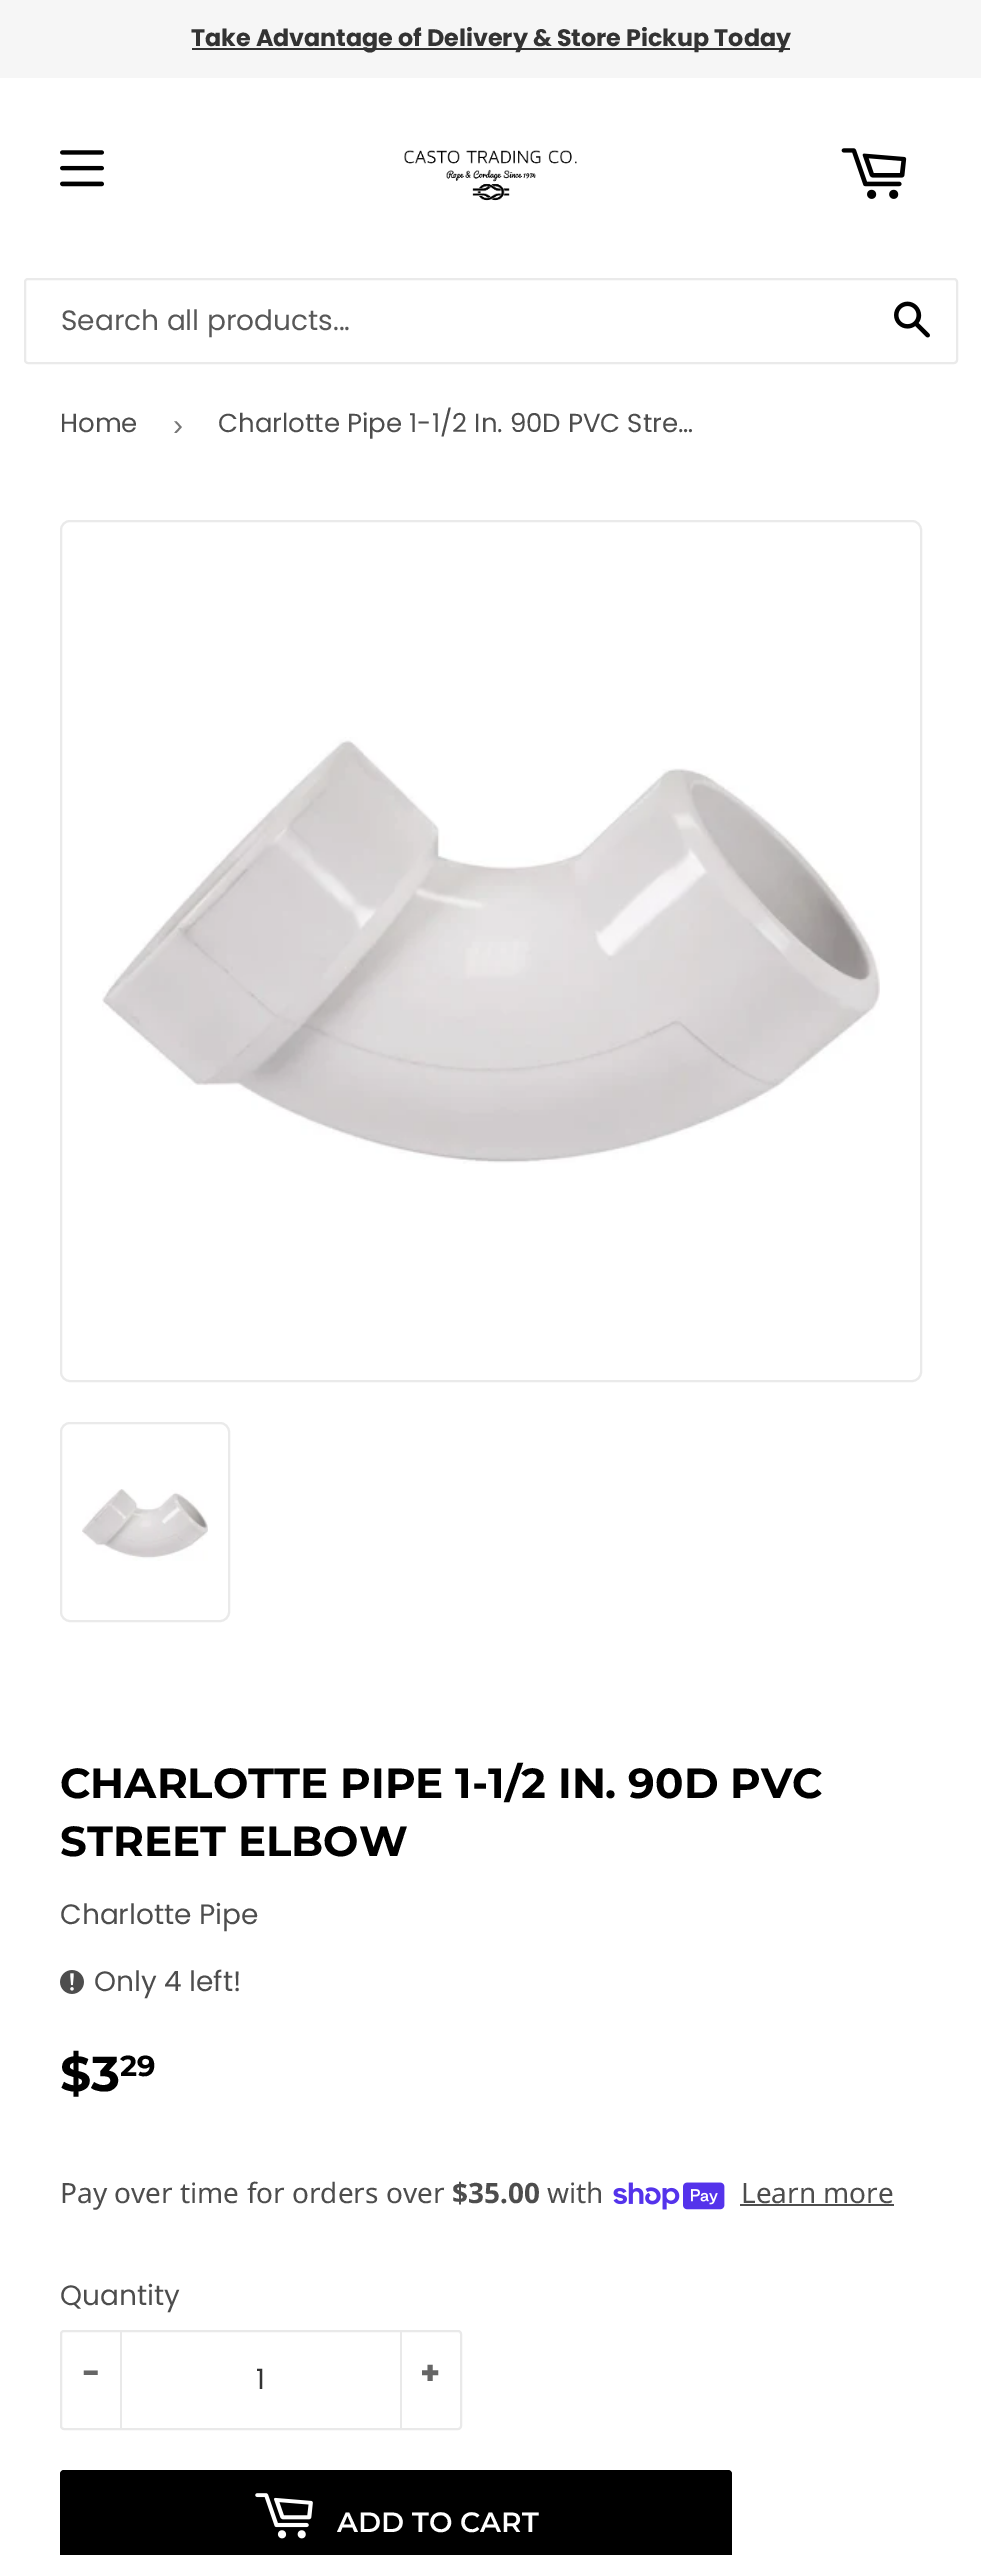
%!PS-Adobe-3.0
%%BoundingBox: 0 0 981 2555
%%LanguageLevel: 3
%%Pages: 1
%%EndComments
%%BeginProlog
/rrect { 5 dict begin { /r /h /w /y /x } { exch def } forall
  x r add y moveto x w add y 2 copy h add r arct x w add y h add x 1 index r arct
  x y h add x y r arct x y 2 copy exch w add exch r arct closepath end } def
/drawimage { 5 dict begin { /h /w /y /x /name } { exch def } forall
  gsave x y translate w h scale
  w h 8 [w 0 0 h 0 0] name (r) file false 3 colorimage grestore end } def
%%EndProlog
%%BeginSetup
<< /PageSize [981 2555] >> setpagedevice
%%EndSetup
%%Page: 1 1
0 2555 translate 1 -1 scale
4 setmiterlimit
1 setgray
0 0 981 2555 rectfill
0.965 setgray
0 0 981 78 rectfill
0.2 setgray
192 48 598 2 rectfill
(images/1.raw) 60 150 44 37 drawimage
(images/2.raw) 404 150 173 51 drawimage
(images/3.raw) 841 148 66 51 drawimage
0.918 setgray
2 setlinewidth
25 279 932 84 3 rrect stroke
(images/4.raw) 894 301 36 37 drawimage
61 521 860 860 9 rrect stroke
(images/5.raw) 102 737 778 427 drawimage
61 1423 168 198 9 rrect stroke
(images/6.raw) 82 1489 126 72 drawimage
(images/7.raw) 60 1970 24 24 drawimage
(images/8.raw) 613 2182 112 28 drawimage
0.302 setgray
740 2204 154 2 rectfill
0.914 setgray
61 2331 400 98 3 rrect stroke
120 2332 2 96 rectfill
400 2332 2 96 rectfill
0 setgray
60 2470 672 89 4 rrect fill
(images/9.raw) 255 2493 58 46 drawimage
/Poppins-Bold [23.8 0 0 -23.8 0 0] selectfont
0.2 setgray
191 46 moveto (Take Advantage of Delivery & Store Pickup Today) show
/Poppins-Regular [28 0 0 -28 0 0] selectfont
0.345 setgray
61 330 moveto (Search all products...) show
/Poppins-Regular [26 0 0 -26 0 0] selectfont
0.302 setgray
60 432 moveto (Home) show
/LiberationSans-Regular [30 0 0 -30 0 0] selectfont
0.463 setgray
173 435 moveto (›) show
/Poppins-Regular [26 0 0 -26 0 0] selectfont
0.302 setgray
218 432 moveto (Charlotte Pipe 1-1/2 In. 90D PVC Stre…) show
/Montserrat-Bold [42 0 0 -42 0 0] selectfont
0 setgray
60 1798 moveto (CHARLOTTE PIPE 1-1/2 IN. 90D PVC) show
60 1856 moveto (STREET ELBOW) show
/Poppins-Regular [28 0 0 -28 0 0] selectfont
0.302 setgray
60 1924 moveto (Charlotte Pipe) show
94 1991 moveto (Only 4 left!) show
/Montserrat-Bold [49 0 0 -49 0 0] selectfont
0 setgray
60 2091 moveto ($3) show
/Montserrat-Bold [29 0 0 -29 0 0] selectfont
120 2076 moveto (29) show
/NotoSans-Regular [28 0 0 -28 0 0] selectfont
0.302 setgray
60 2203 moveto (Pay over time for orders over) show
/NotoSans-Bold [28 0 0 -28 0 0] selectfont
452 2203 moveto ($35.00) show
/NotoSans-Regular [28 0 0 -28 0 0] selectfont
547 2203 moveto (with) show
741 2203 moveto (Learn more) show
/Poppins-Regular [28 0 0 -28 0 0] selectfont
60 2305 moveto (Quantity) show
/Poppins-Bold [32 0 0 -32 0 0] selectfont
0.4 setgray
82 2384 moveto (-) show
/Poppins-Regular [28 0 0 -28 0 0] selectfont
0.2 setgray
256 2389 moveto (1) show
/Poppins-Bold [32 0 0 -32 0 0] selectfont
0.4 setgray
420 2384 moveto (+) show
/Montserrat-SemiBold [28 0 0 -28 0 0] selectfont
1 setgray
337 2532 moveto (ADD TO CART) show
showpage
%%EOF
